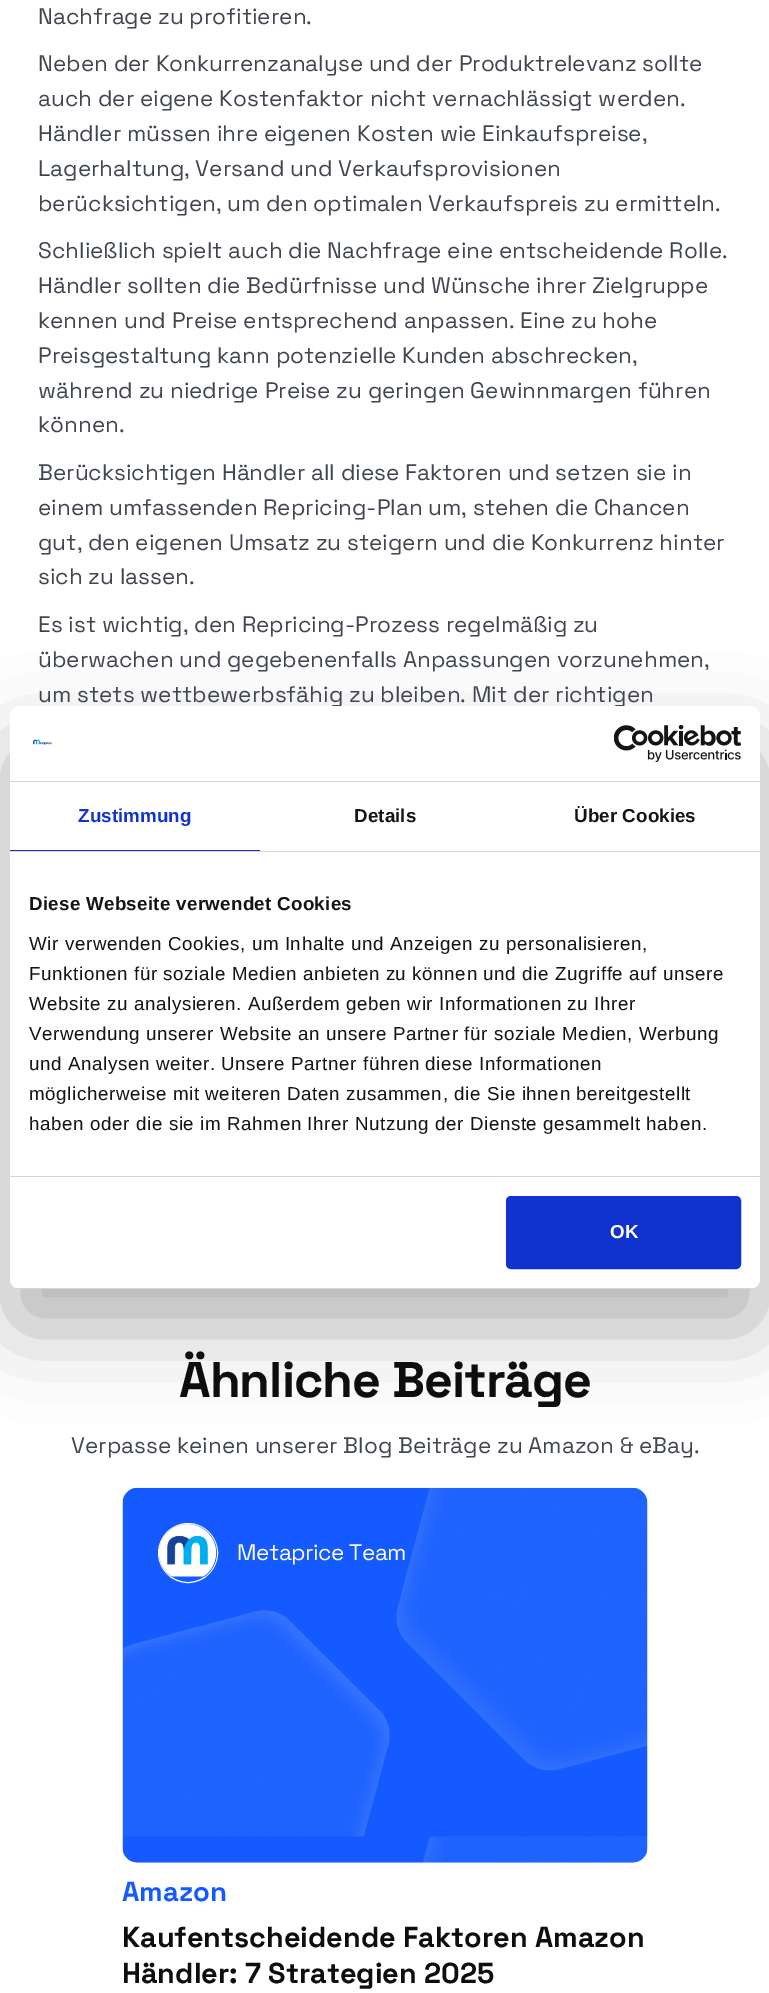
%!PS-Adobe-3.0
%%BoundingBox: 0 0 769 1993
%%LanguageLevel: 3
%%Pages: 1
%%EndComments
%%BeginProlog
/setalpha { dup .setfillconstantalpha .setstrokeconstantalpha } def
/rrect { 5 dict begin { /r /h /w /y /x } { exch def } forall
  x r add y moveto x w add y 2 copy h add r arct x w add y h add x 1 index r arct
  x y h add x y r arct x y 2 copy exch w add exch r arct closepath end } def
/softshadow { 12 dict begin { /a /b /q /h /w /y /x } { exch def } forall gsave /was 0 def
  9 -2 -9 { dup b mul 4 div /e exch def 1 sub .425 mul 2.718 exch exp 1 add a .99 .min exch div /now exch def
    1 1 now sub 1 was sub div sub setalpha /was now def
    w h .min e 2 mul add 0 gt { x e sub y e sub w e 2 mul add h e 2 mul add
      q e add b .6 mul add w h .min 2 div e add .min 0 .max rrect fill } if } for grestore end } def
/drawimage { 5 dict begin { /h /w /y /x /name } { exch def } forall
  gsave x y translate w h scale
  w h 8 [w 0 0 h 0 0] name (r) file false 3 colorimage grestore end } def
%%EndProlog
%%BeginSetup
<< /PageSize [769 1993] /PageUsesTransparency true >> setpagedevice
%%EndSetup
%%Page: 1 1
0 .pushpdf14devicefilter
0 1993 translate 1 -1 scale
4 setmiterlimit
1 setgray
0 0 769 1993 rectfill
(images/1.raw) 122 1487 526 376 drawimage
newpath 188 1553 29.5 0 360 arc closepath stroke
(images/2.raw) 159 1524 58 53 drawimage
0 setgray
10 746 750 583 10 42.5 0.3 softshadow
/SpaceGrotesk-Regular [22.5 0 0 -22.5 0 0] selectfont
0.251 0.271 0.31 setrgbcolor
38 24 moveto (Nachfrage zu profitieren.) show
38 71 moveto (Neben der Konkurrenzanalyse und der Produktrelevanz sollte) show
38 106 moveto (auch der eigene Kostenfaktor nicht vernachlässigt werden.) show
38 141 moveto (Händler müssen ihre eigenen Kosten wie Einkaufspreise,) show
38 176 moveto (Lagerhaltung, Versand und Verkaufsprovisionen) show
38 211 moveto (berücksichtigen, um den optimalen Verkaufspreis zu ermitteln.) show
38 258 moveto (Schließlich spielt auch die Nachfrage eine entscheidende Rolle.) show
38 293 moveto (Händler sollten die Bedürfnisse und Wünsche ihrer Zielgruppe) show
38 328 moveto (kennen und Preise entsprechend anpassen. Eine zu hohe) show
38 363 moveto (Preisgestaltung kann potenzielle Kunden abschrecken,) show
38 398 moveto (während zu niedrige Preise zu geringen Gewinnmargen führen) show
38 432 moveto (können.) show
38 480 moveto (Berücksichtigen Händler all diese Faktoren und setzen sie in) show
38 515 moveto (einem umfassenden Repricing-Plan um, stehen die Chancen) show
38 550 moveto (gut, den eigenen Umsatz zu steigern und die Konkurrenz hinter) show
38 584 moveto (sich zu lassen.) show
38 632 moveto (Es ist wichtig, den Repricing-Prozess regelmäßig zu) show
38 667 moveto (überwachen und gegebenenfalls Anpassungen vorzunehmen,) show
38 702 moveto (um stets wettbewerbsfähig zu bleiben. Mit der richtigen) show
/SpaceGrotesk-Bold [50 0 0 -50 0 0] selectfont
0.051 0.055 0.063 setrgbcolor
179 1397 moveto -1 0 (Ähnliche Beiträge) ashow
/SpaceGrotesk-Regular [22.5 0 0 -22.5 0 0] selectfont
0.251 0.271 0.31 setrgbcolor
71 1453 moveto (Verpasse keinen unserer Blog Beiträge zu Amazon & eBay.) show
1 setgray
237 1560 moveto -0.5 0 (Metaprice Team) ashow
/SpaceGrotesk-Bold [27.5 0 0 -27.5 0 0] selectfont
0.078 0.353 1 setrgbcolor
122 1901 moveto (Amazon) show
/SpaceGrotesk-Bold [28.75 0 0 -28.75 0 0] selectfont
0.051 0.055 0.063 setrgbcolor
122 1947 moveto (Kaufentscheidende Faktoren Amazon) show
122 1983 moveto (Händler: 7 Strategien 2025) show
1 setgray
10 706 750 583 10 rrect fill
0.839 setgray
10 781 750 1 rectfill
(images/3.raw) 33 739 20 6 drawimage
(images/4.raw) 614 725 127 38 drawimage
10 851 750 1 rectfill
0.063 0.196 0.812 setrgbcolor
10 850 250 1 rectfill
/LiberationSans-Bold [18.75 0 0 -18.75 0 0] selectfont
78 822 moveto 0.1 0 (Zustimmung) ashow
0.078 setgray
354 822 moveto 0.1 0 (Details) ashow
574 822 moveto 0.1 0 (Über Cookies) ashow
0.839 setgray
10 1176 750 1 rectfill
0.078 setgray
29 910 moveto 0.3 0 (Diese Webseite verwendet Cookies) ashow
/LiberationSans-Regular [18.75 0 0 -18.75 0 0] selectfont
29 950 moveto 0.62 0 (Wir verwenden Cookies, um Inhalte und Anzeigen zu personalisieren,) ashow
29 980 moveto 0.62 0 (Funktionen für soziale Medien anbieten zu können und die Zugriffe auf unsere) ashow
29 1010 moveto 0.62 0 (Website zu analysieren. Außerdem geben wir Informationen zu Ihrer) ashow
29 1040 moveto 0.62 0 (Verwendung unserer Website an unsere Partner für soziale Medien, Werbung) ashow
29 1070 moveto 0.62 0 (und Analysen weiter. Unsere Partner führen diese Informationen) ashow
29 1100 moveto 0.62 0 (möglicherweise mit weiteren Daten zusammen, die Sie ihnen bereitgestellt) ashow
29 1130 moveto 0.62 0 (haben oder die sie im Rahmen Ihrer Nutzung der Dienste gesammelt haben.) ashow
gsave
10 706 750 583 10 rrect clip newpath
0.839 setgray
10 1288 750 1 rectfill
grestore
0.063 0.196 0.812 setrgbcolor
507.5 1197.5 232 70 3.5 rrect gsave fill grestore
3 setlinewidth
stroke
/LiberationSans-Bold [18.75 0 0 -18.75 0 0] selectfont
1 setgray
610 1238 moveto (OK) show
.poppdf14devicefilter showpage
%%EOF
